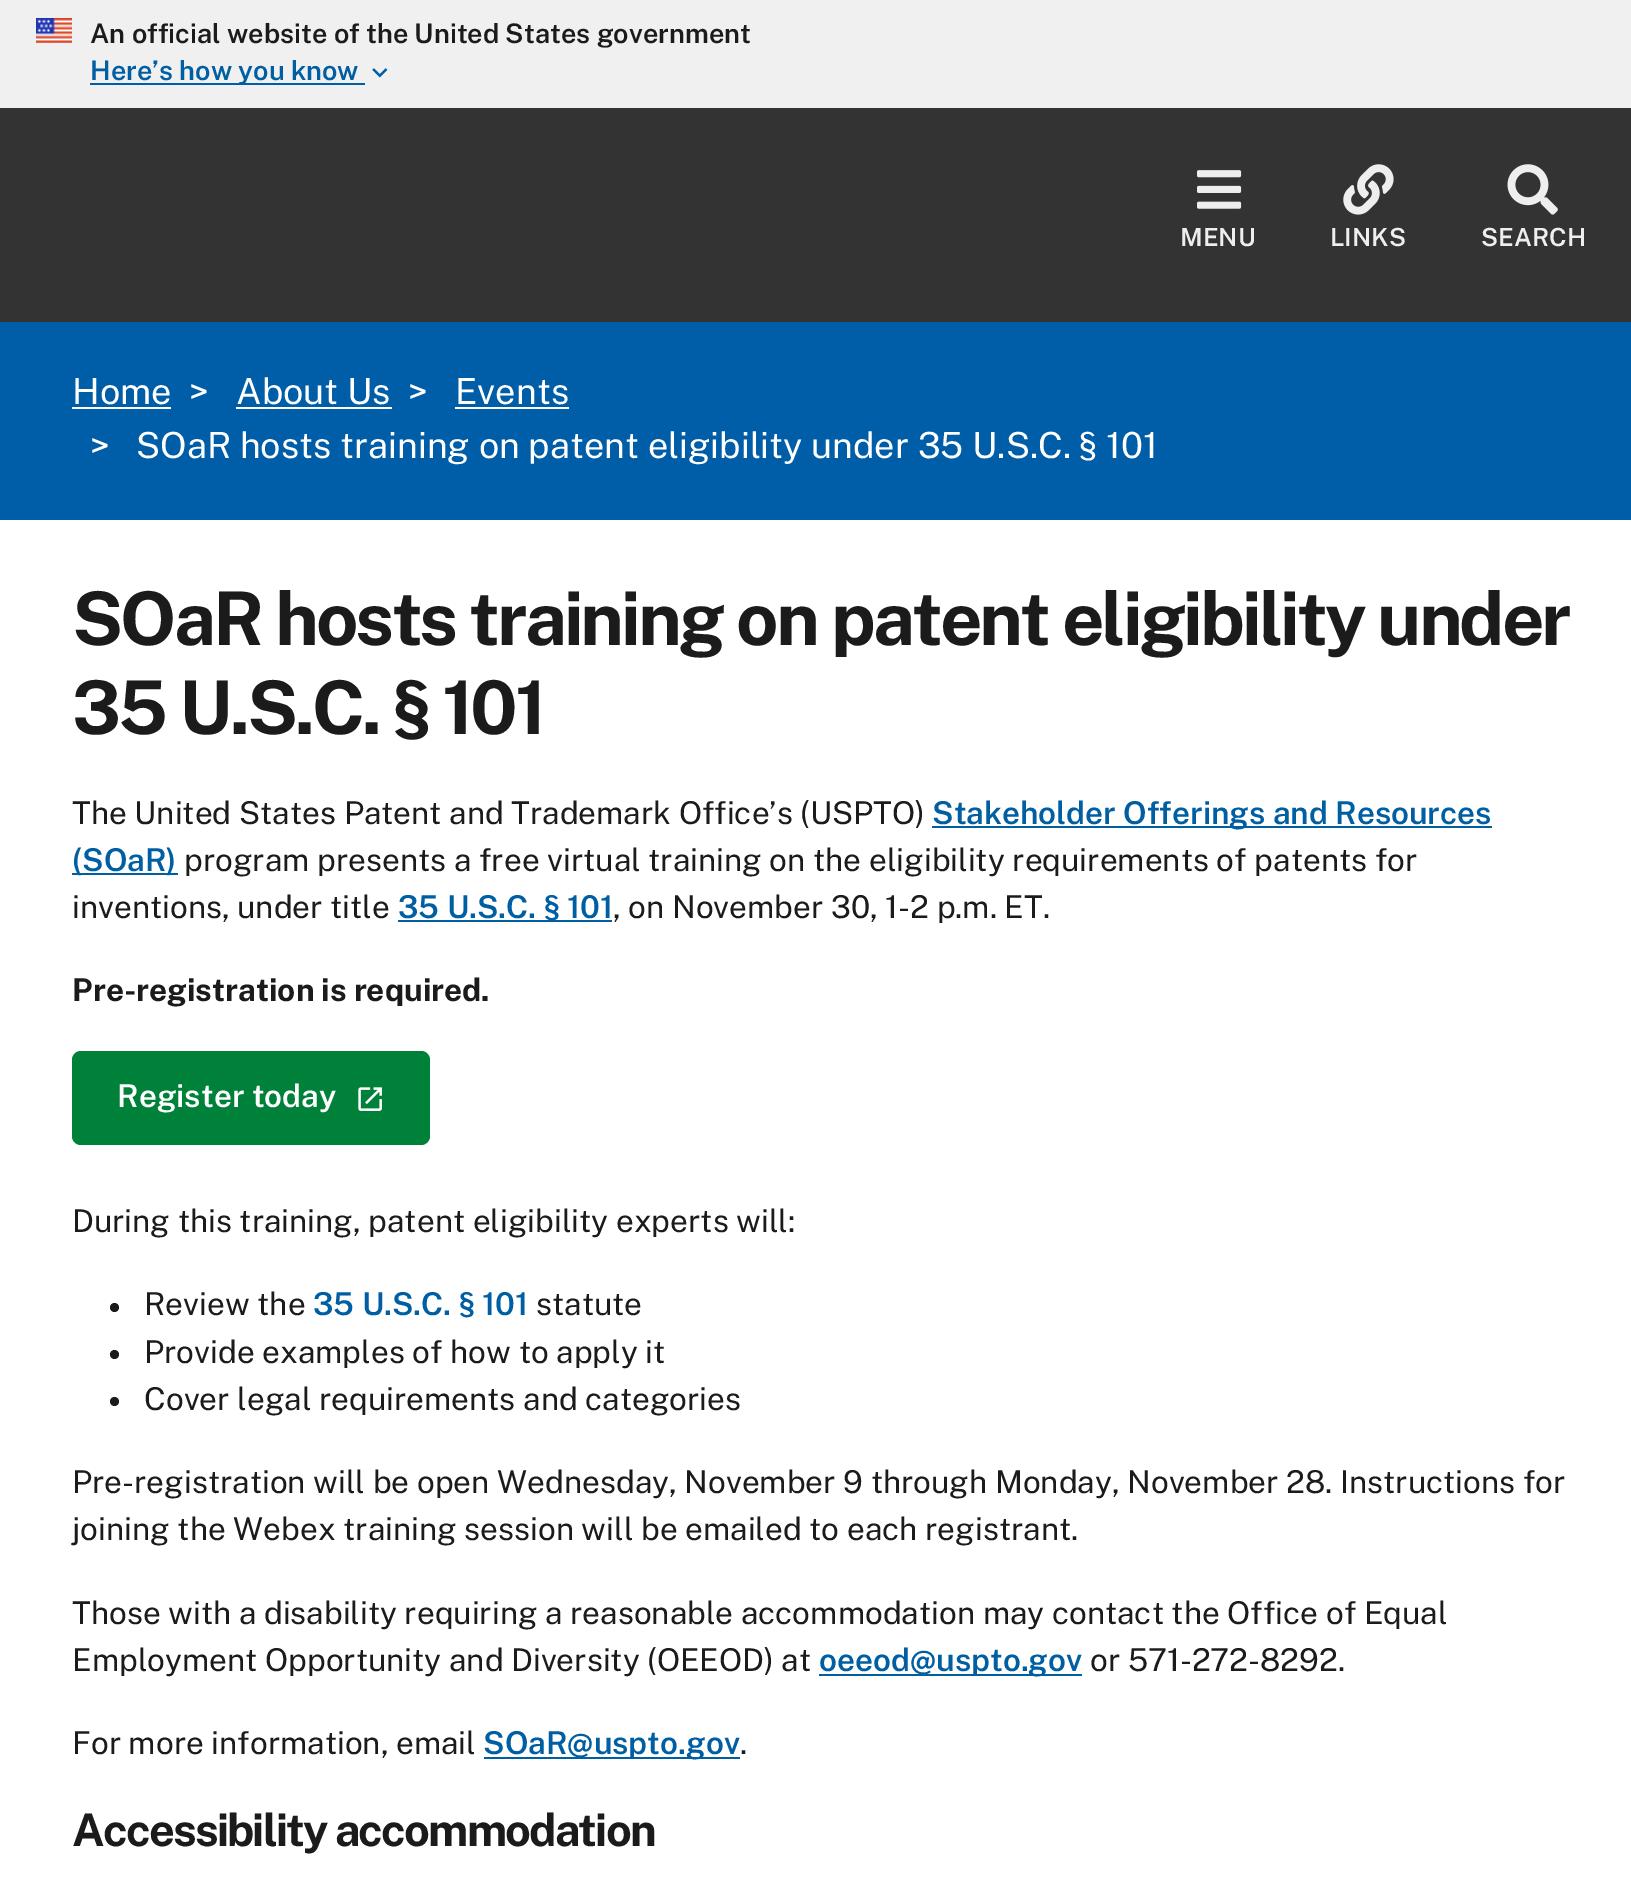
%!PS-Adobe-3.0
%%BoundingBox: 0 0 1631 1891
%%LanguageLevel: 3
%%Pages: 1
%%EndComments
%%BeginProlog
/rrect { 5 dict begin { /r /h /w /y /x } { exch def } forall
  x r add y moveto x w add y 2 copy h add r arct x w add y h add x 1 index r arct
  x y h add x y r arct x y 2 copy exch w add exch r arct closepath end } def
/drawimage { 5 dict begin { /h /w /y /x /name } { exch def } forall
  gsave x y translate w h scale
  w h 8 [w 0 0 h 0 0] name (r) file false 3 colorimage grestore end } def
%%EndProlog
%%BeginSetup
<< /PageSize [1631 1891] >> setpagedevice
%%EndSetup
%%Page: 1 1
0 1891 translate 1 -1 scale
4 setmiterlimit
1 setgray
0 0 1631 1891 rectfill
0.941 setgray
0 0 1631 108 rectfill
(images/1.raw) 36 18 36 25 drawimage
0 0.369 0.635 setrgbcolor
90 83 275 2 rectfill
(images/2.raw) 372 68 16 10 drawimage
0.2 setgray
0 108 1631 214 rectfill
(images/3.raw) 1197 170 45 39 drawimage
(images/4.raw) 1343 164 51 51 drawimage
(images/5.raw) 1507 164 51 51 drawimage
0 0.365 0.659 setrgbcolor
0 322 1631 198 rectfill
1 setgray
72 407 99 2 rectfill
236 407 156 2 rectfill
455 407 114 2 rectfill
0 0.369 0.635 setrgbcolor
932 826 560 2 rectfill
72 873 106 2 rectfill
398 920 214 2 rectfill
0 0.506 0.224 setrgbcolor
72 1051 358 94 9 rrect fill
(images/6.raw) 358 1087 24 24 drawimage
0.106 setgray
newpath 114.5 1307.5 4.5 0 360 arc closepath fill
newpath 114.5 1354.5 4.5 0 360 arc closepath fill
newpath 114.5 1401.5 4.5 0 360 arc closepath fill
0 0.369 0.635 setrgbcolor
819 1674 263 2 rectfill
484 1757 256 2 rectfill
/PublicSans-SemiBold [27 0 0 -27 0 0] selectfont
0.106 setgray
90 43 moveto (An official website of the United States government) show
0 0.369 0.635 setrgbcolor
90 80 moveto (Here’s how you know) show
/PublicSans-SemiBold [25 0 0 -25 0 0] selectfont
0.933 setgray
1180 246 moveto (MENU) show
1330 246 moveto (LINKS) show
1481 246 moveto (SEARCH) show
/PublicSans-Regular [36 0 0 -36 0 0] selectfont
1 setgray
72 404 moveto (Home) show
189 404 moveto (>) show
236 404 moveto (About Us) show
408 404 moveto (>) show
455 404 moveto (Events) show
90 458 moveto (>) show
136 458 moveto (SOaR hosts training on patent eligibility under 35 U.S.C. § 101) show
/PublicSans-Bold [74 0 0 -74 0 0] selectfont
0.106 setgray
72 645 moveto -2.95 0 (SOaR hosts training on patent eligibility under) ashow
72 734 moveto -2.95 0 (35 U.S.C. § 101) ashow
/PublicSans-Regular [31.5 0 0 -31.5 0 0] selectfont
72 824 moveto (The United States Patent and Trademark Office’s \(USPTO\)) show
/PublicSans-SemiBold [31.5 0 0 -31.5 0 0] selectfont
0 0.369 0.635 setrgbcolor
932 824 moveto (Stakeholder Offerings and Resources) show
72 871 moveto (\(SOaR\)) show
/PublicSans-Regular [31.5 0 0 -31.5 0 0] selectfont
0.106 setgray
184 871 moveto (program presents a free virtual training on the eligibility requirements of patents for) show
72 918 moveto (inventions, under title) show
/PublicSans-SemiBold [31.5 0 0 -31.5 0 0] selectfont
0 0.369 0.635 setrgbcolor
398 918 moveto (35 U.S.C. § 101) show
/PublicSans-Regular [31.5 0 0 -31.5 0 0] selectfont
0.106 setgray
613 918 moveto (, on November 30, 1-2 p.m. ET.) show
/PublicSans-Bold [31.5 0 0 -31.5 0 0] selectfont
72 1001 moveto (Pre-registration is required.) show
/PublicSans-SemiBold [31.5 0 0 -31.5 0 0] selectfont
1 setgray
117 1107 moveto (Register today) show
/PublicSans-Regular [31.5 0 0 -31.5 0 0] selectfont
0.106 setgray
72 1232 moveto (During this training, patent eligibility experts will:) show
144 1315 moveto (Review the) show
/PublicSans-SemiBold [31.5 0 0 -31.5 0 0] selectfont
0 0.369 0.635 setrgbcolor
313 1315 moveto (35 U.S.C. § 101) show
/PublicSans-Regular [31.5 0 0 -31.5 0 0] selectfont
0.106 setgray
536 1315 moveto (statute) show
144 1363 moveto (Provide examples of how to apply it) show
144 1410 moveto (Cover legal requirements and categories) show
72 1493 moveto (Pre-registration will be open Wednesday, November 9 through Monday, November 28. Instructions for) show
72 1540 moveto (joining the Webex training session will be emailed to each registrant.) show
72 1624 moveto (Those with a disability requiring a reasonable accommodation may contact the Office of Equal) show
72 1671 moveto (Employment Opportunity and Diversity \(OEEOD\) at) show
/PublicSans-SemiBold [31.5 0 0 -31.5 0 0] selectfont
0 0.369 0.635 setrgbcolor
819 1671 moveto (oeeod@uspto.gov) show
/PublicSans-Regular [31.5 0 0 -31.5 0 0] selectfont
0.106 setgray
1090 1671 moveto (or 571-272-8292.) show
72 1754 moveto (For more information, email) show
/PublicSans-SemiBold [31.5 0 0 -31.5 0 0] selectfont
0 0.369 0.635 setrgbcolor
483 1754 moveto (SOaR@uspto.gov) show
/PublicSans-Regular [31.5 0 0 -31.5 0 0] selectfont
0.106 setgray
740 1754 moveto (.) show
/PublicSans-Bold [45 0 0 -45 0 0] selectfont
72 1846 moveto -1.8 0 (Accessibility accommodation) ashow
showpage
%%EOF
